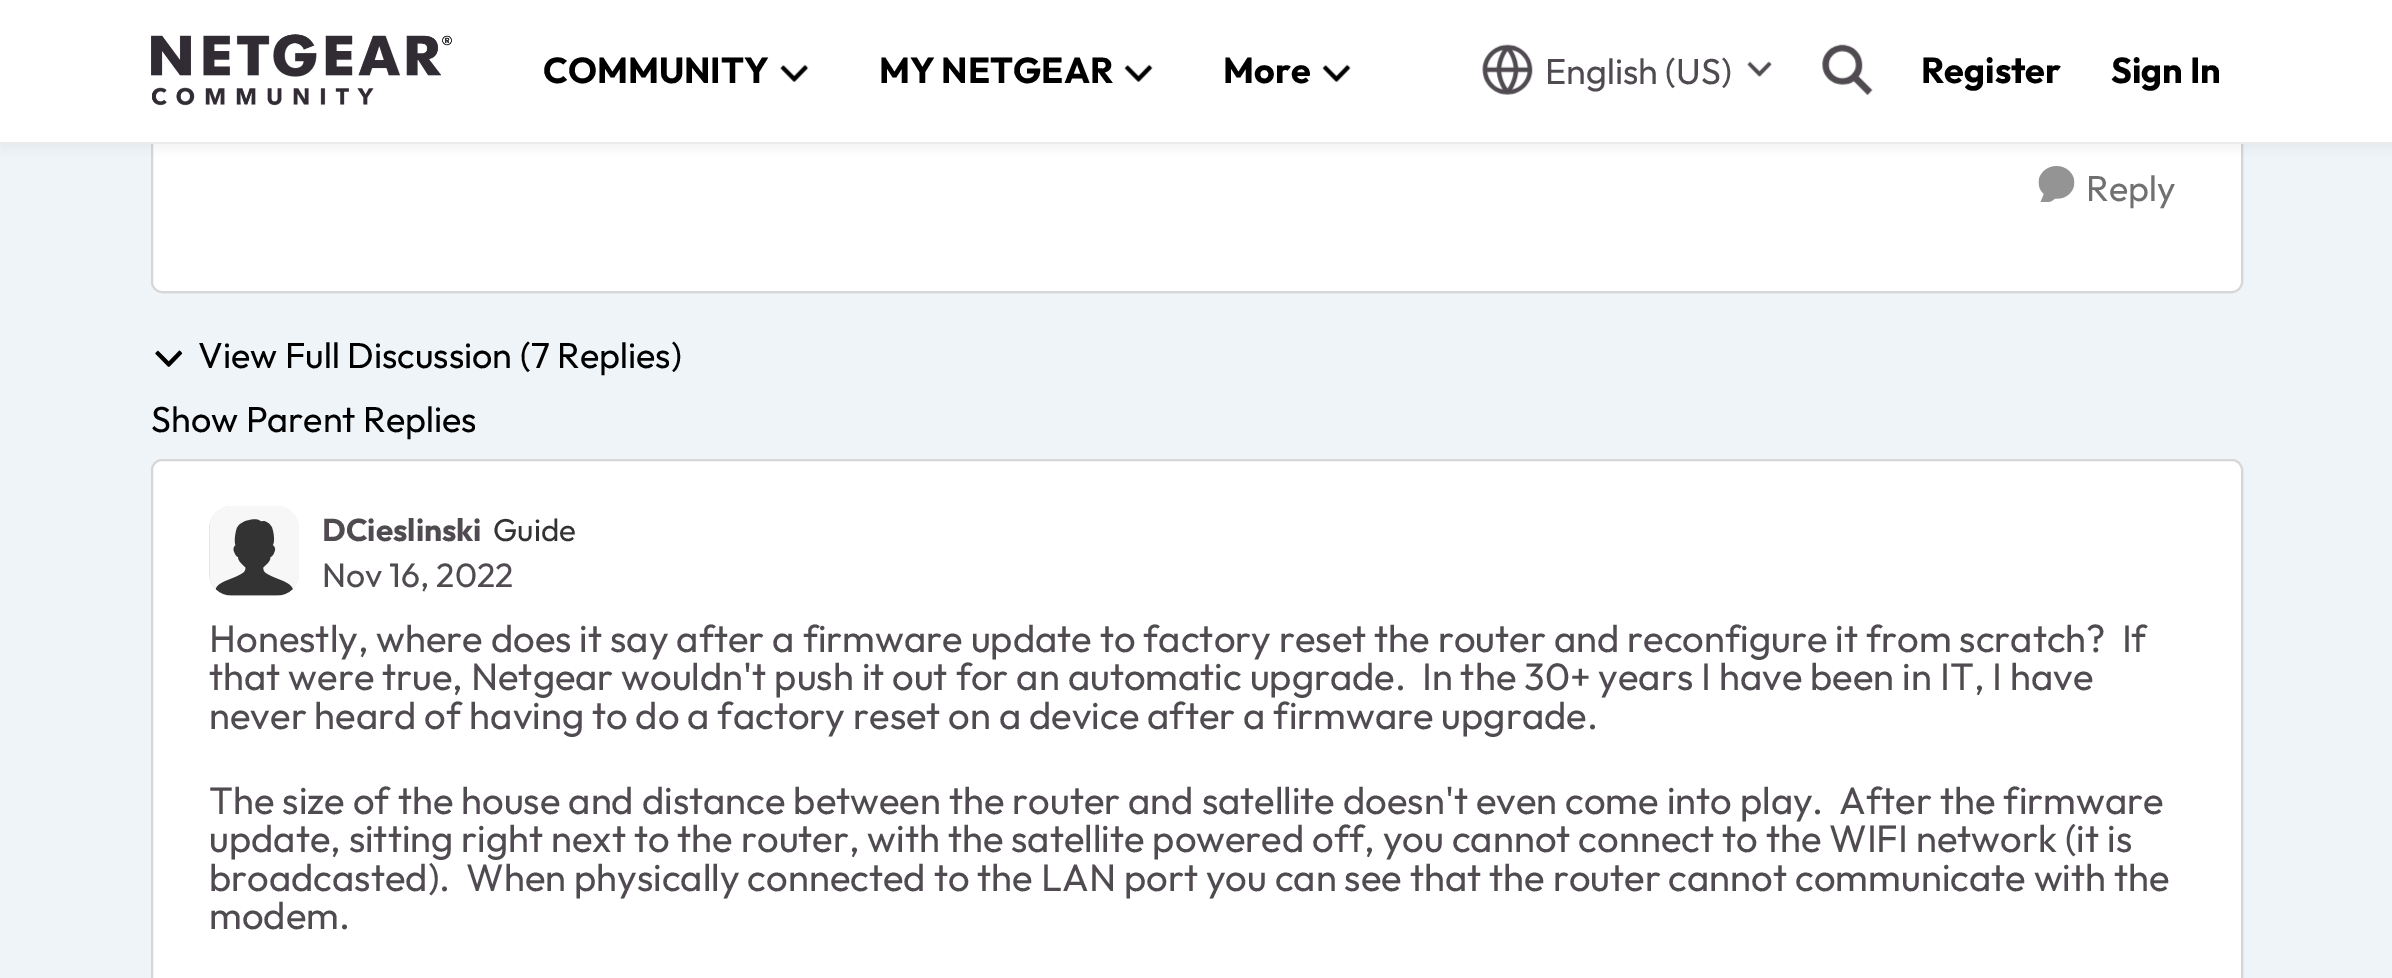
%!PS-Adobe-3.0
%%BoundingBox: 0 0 2392 978
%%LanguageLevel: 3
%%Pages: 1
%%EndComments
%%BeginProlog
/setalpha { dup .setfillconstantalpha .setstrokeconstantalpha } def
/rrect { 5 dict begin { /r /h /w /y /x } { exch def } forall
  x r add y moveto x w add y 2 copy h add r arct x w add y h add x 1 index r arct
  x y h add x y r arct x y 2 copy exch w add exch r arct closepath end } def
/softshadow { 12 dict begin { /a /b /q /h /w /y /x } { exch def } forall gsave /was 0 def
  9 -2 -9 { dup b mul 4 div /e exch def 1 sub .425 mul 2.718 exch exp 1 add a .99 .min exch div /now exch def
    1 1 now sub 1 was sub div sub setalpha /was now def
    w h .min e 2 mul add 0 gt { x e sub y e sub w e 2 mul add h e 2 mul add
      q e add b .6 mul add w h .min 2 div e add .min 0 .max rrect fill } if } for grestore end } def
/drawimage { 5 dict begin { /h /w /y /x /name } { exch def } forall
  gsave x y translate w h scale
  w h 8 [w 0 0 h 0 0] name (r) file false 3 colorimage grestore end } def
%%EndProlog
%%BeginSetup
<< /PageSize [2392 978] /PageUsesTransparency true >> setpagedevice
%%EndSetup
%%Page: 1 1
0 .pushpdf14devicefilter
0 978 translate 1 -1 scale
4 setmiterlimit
0.937 0.957 0.976 setrgbcolor
0 0 2392 978 rectfill
1 setgray
151 -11 2092 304 11 rrect fill
0.16 setalpha
0 setgray
2 setlinewidth
152 -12 2090 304 10 rrect stroke
1 setalpha
0.2 setgray
0 5 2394 144 0 4.5 0.06 softshadow
1 setgray
0 0 2392 142 rectfill
0.922 setgray
0 142 2392 2 rectfill
(images/1.raw) 151 34 301 72 drawimage
(images/2.raw) 780 64 29 18 drawimage
(images/3.raw) 1124 64 29 18 drawimage
(images/3.raw) 1322 64 29 18 drawimage
(images/4.raw) 1482 44 51 51 drawimage
(images/5.raw) 1747 61 25 16 drawimage
(images/6.raw) 1822 44 51 52 drawimage
(images/7.raw) 2038 166 37 36 drawimage
(images/8.raw) 155 350 28 17 drawimage
1 setgray
151 459 2092 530 11 rrect fill
0.16 setalpha
0 setgray
152 460 2090 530 10 rrect stroke
1 setalpha
0.851 setgray
209 506 90 90 23 rrect fill
(images/9.raw) 209 506 90 90 drawimage
/Outfit-Bold [36 0 0 -36 0 0] selectfont
0 setgray
543 83 moveto (COMMUNITY) show
879 83 moveto (MY NETGEAR) show
1223 83 moveto (More) show
/Outfit-Regular [36 0 0 -36 0 0] selectfont
0.314 0.294 0.318 setrgbcolor
1545 84 moveto (English \(US\)) show
/Outfit-Bold [36 0 0 -36 0 0] selectfont
0 setgray
1921 83 moveto (Register) show
2111 83 moveto (Sign In) show
/Outfit-Regular [36 0 0 -36 0 0] selectfont
0.439 setgray
2086 201 moveto (Reply) show
0 setgray
198 368 moveto (View Full Discussion \(7 Replies\)) show
151 432 moveto (Show Parent Replies) show
/Outfit-Bold [31.5 0 0 -31.5 0 0] selectfont
0.314 0.294 0.318 setrgbcolor
322 541 moveto (DCieslinski) show
/Outfit-Regular [31.5 0 0 -31.5 0 0] selectfont
0.2 setgray
493 541 moveto (Guide) show
/Outfit-Regular [33.75 0 0 -33.75 0 0] selectfont
0.314 0.294 0.318 setrgbcolor
322 587 moveto (Nov 16, 2022) show
/Outfit-Regular [38.25 0 0 -38.25 0 0] selectfont
209 652 moveto (Honestly, where does it say after a firmware update to factory reset the router and reconfigure it from scratch?  If) show
209 690 moveto (that were true, Netgear wouldn't push it out for an automatic upgrade.  In the 30+ years I have been in IT, I have) show
209 729 moveto (never heard of having to do a factory reset on a device after a firmware upgrade.) show
209 814 moveto (The size of the house and distance between the router and satellite doesn't even come into play.  After the firmware) show
209 852 moveto (update, sitting right next to the router, with the satellite powered off, you cannot connect to the WIFI network \(it is) show
209 891 moveto (broadcasted\).  When physically connected to the LAN port you can see that the router cannot communicate with the) show
209 929 moveto (modem.) show
.poppdf14devicefilter showpage
%%EOF
